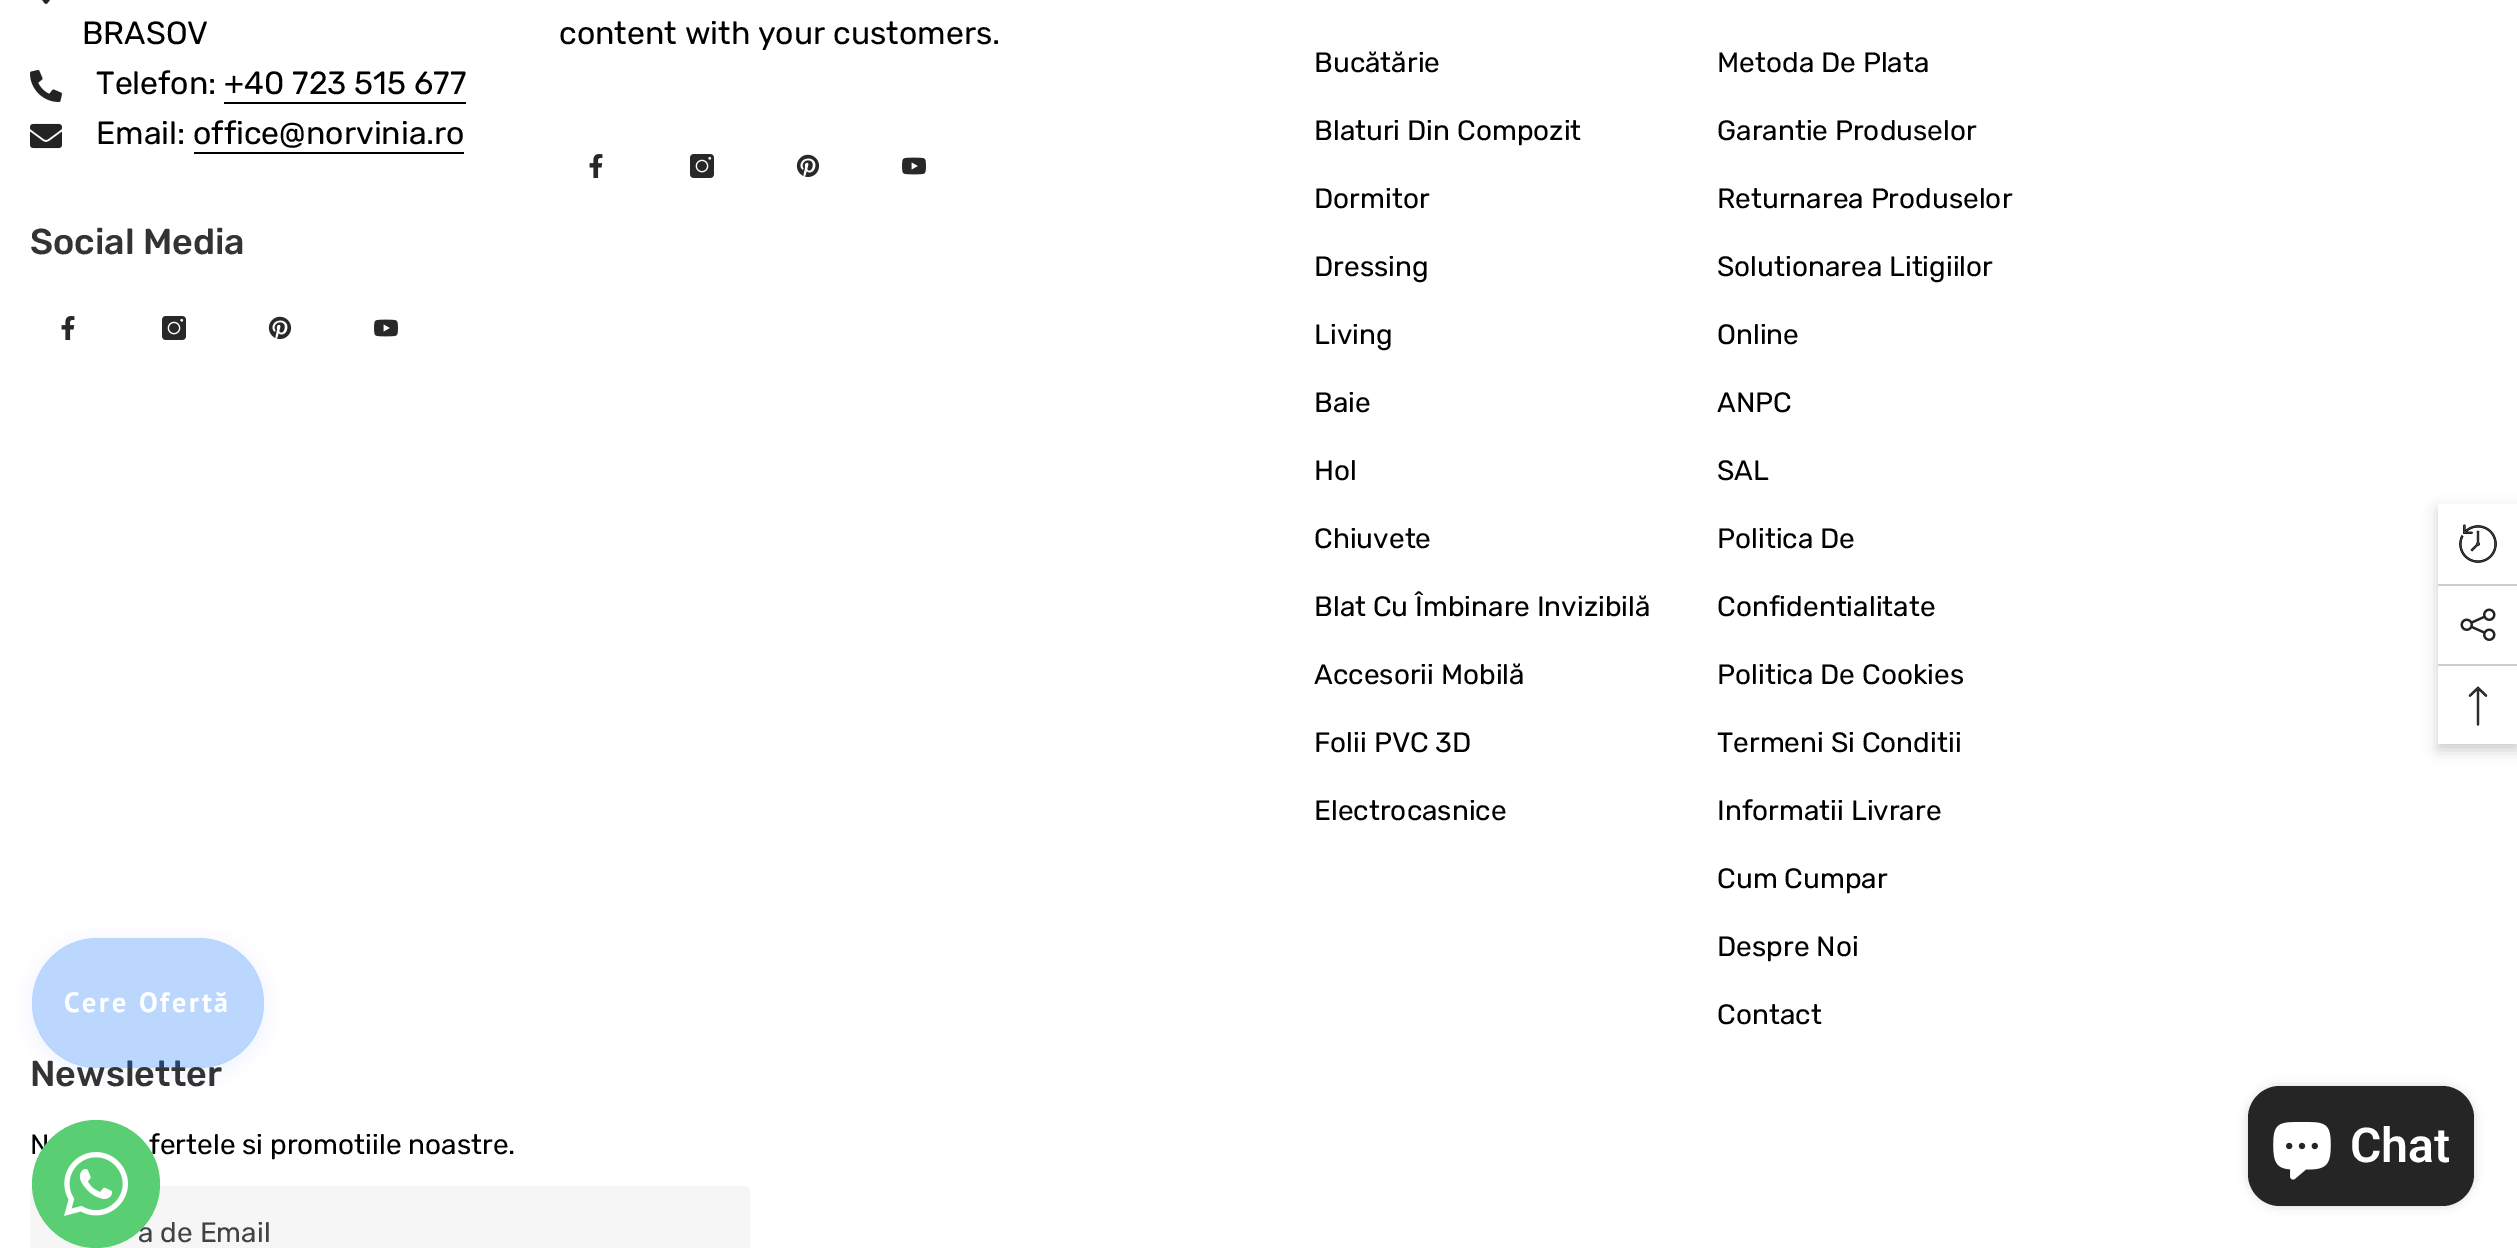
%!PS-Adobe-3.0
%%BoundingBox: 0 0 2517 1248
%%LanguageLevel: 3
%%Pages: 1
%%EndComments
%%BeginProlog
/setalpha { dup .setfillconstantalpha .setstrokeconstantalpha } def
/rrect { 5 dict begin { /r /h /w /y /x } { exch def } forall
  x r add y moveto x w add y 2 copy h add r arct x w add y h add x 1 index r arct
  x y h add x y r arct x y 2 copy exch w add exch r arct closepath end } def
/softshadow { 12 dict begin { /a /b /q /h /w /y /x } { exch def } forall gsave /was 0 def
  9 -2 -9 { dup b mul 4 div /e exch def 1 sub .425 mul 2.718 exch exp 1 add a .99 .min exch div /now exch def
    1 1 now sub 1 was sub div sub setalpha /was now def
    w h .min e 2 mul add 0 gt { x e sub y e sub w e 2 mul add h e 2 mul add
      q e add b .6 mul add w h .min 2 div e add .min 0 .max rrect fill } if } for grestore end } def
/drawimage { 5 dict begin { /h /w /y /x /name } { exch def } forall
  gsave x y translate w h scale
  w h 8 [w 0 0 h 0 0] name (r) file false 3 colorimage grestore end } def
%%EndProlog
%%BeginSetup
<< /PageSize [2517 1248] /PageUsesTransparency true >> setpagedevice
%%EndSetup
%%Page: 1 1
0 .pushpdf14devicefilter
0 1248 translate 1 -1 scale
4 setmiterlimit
1 setgray
0 0 2517 1248 rectfill
(images/1.raw) 42 0 8 4 drawimage
(images/2.raw) 30 70 32 32 drawimage
0 setgray
224 102 242 2 rectfill
(images/3.raw) 30 123 32 26 drawimage
194 152 270 2 rectfill
(images/4.raw) 61 316 14 24 drawimage
(images/5.raw) 162 316 24 24 drawimage
(images/6.raw) 268 316 24 23 drawimage
(images/7.raw) 374 319 24 18 drawimage
(images/4.raw) 589 154 14 24 drawimage
(images/5.raw) 690 154 24 24 drawimage
(images/6.raw) 796 154 24 23 drawimage
(images/7.raw) 902 157 24 18 drawimage
0.965 setgray
30 1186 720 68 6 rrect fill
gsave
newpath 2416 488 moveto 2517 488 lineto 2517 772 lineto 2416 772 lineto closepath 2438 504 moveto 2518 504 lineto 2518 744 lineto 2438 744 lineto closepath eoclip newpath
0 setgray
2438 510 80 240 0 7 0.2 softshadow
grestore
(images/8.raw) 2459 524 38 39 drawimage
0.8 setgray
2438 584 79 2 rectfill
(images/9.raw) 2460 608 36 33 drawimage
2438 664 79 2 rectfill
(images/10.raw) 2468 686 20 40 drawimage
gsave
newpath 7 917 moveto 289 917 lineto 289 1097 lineto 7 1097 lineto closepath 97 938 moveto 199 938 lineto 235 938 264 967 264 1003 curveto 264 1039 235 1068 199 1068 curveto 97 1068 lineto 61 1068 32 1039 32 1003 curveto 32 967 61 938 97 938 curveto closepath eoclip newpath
0.051 0.431 0.992 setrgbcolor
32 942 232 130 65 8 0.07 softshadow
grestore
0 setgray
2248 1086 226 120 32 5 0.15 softshadow
0.149 0.145 0.145 setrgbcolor
2248 1086 226 120 32 rrect fill
(images/12.raw) 2273 1122 58 58 drawimage
/Rubik-Regular [32 0 0 -32 0 0] selectfont
0 setgray
82 44 moveto (BRASOV) show
96 94 moveto (Telefon: +40 723 515 677) show
96 144 moveto (Email: office@norvinia.ro) show
/Rubik-Medium [36 0 0 -36 0 0] selectfont
0.2 setgray
30 254 moveto (Social Media) show
/Rubik-Regular [32 0 0 -32 0 0] selectfont
0 setgray
559 44 moveto (content with your customers.) show
/Rubik-Regular [28 0 0 -28 0 0] selectfont
1314 72 moveto (Bucătărie) show
1314 140 moveto (Blaturi Din Compozit) show
1314 208 moveto (Dormitor) show
1314 276 moveto (Dressing) show
1314 344 moveto (Living) show
1314 412 moveto (Baie) show
1314 480 moveto (Hol) show
1314 548 moveto (Chiuvete) show
1314 616 moveto (Blat Cu Îmbinare Invizibilă) show
1314 684 moveto (Accesorii Mobilă) show
1314 752 moveto (Folii PVC 3D) show
1314 820 moveto (Electrocasnice) show
1717 72 moveto (Metoda De Plata) show
1717 140 moveto (Garantie Produselor) show
1717 208 moveto (Returnarea Produselor) show
1717 276 moveto (Solutionarea Litigiilor) show
1717 344 moveto (Online) show
1717 412 moveto (ANPC) show
1717 480 moveto (SAL) show
1717 548 moveto (Politica De) show
1717 616 moveto (Confidentialitate) show
1717 684 moveto (Politica De Cookies) show
1717 752 moveto (Termeni Si Conditii) show
1717 820 moveto (Informatii Livrare) show
1717 888 moveto (Cum Cumpar) show
1717 956 moveto (Despre Noi) show
1717 1024 moveto (Contact) show
/Rubik-Medium [36 0 0 -36 0 0] selectfont
0.2 setgray
30 1086 moveto (Newsletter) show
/Rubik-Regular [28 0 0 -28 0 0] selectfont
0 setgray
30 1154 moveto (N) show
149 1154 moveto (fertele si promotiile noastre.) show
0.259 setgray
138 1242 moveto (a de Email) show
0.28 setalpha
0.051 0.431 0.992 setrgbcolor
32 938 232 130 65 rrect fill
/PTSans-Bold [28 0 0 -28 0 0] selectfont
1 setalpha
1 setgray
64 1012 moveto 2.75 0 (Cere Ofertă) ashow
0.349 0.808 0.447 setrgbcolor
newpath 96 1184 64 0 360 arc closepath fill
(images/11.raw) 64 1152 64 64 drawimage
/Roboto-SemiBold [48 0 0 -48 0 0] selectfont
1 setgray
2350 1162 moveto (Chat) show
.poppdf14devicefilter showpage
%%EOF
